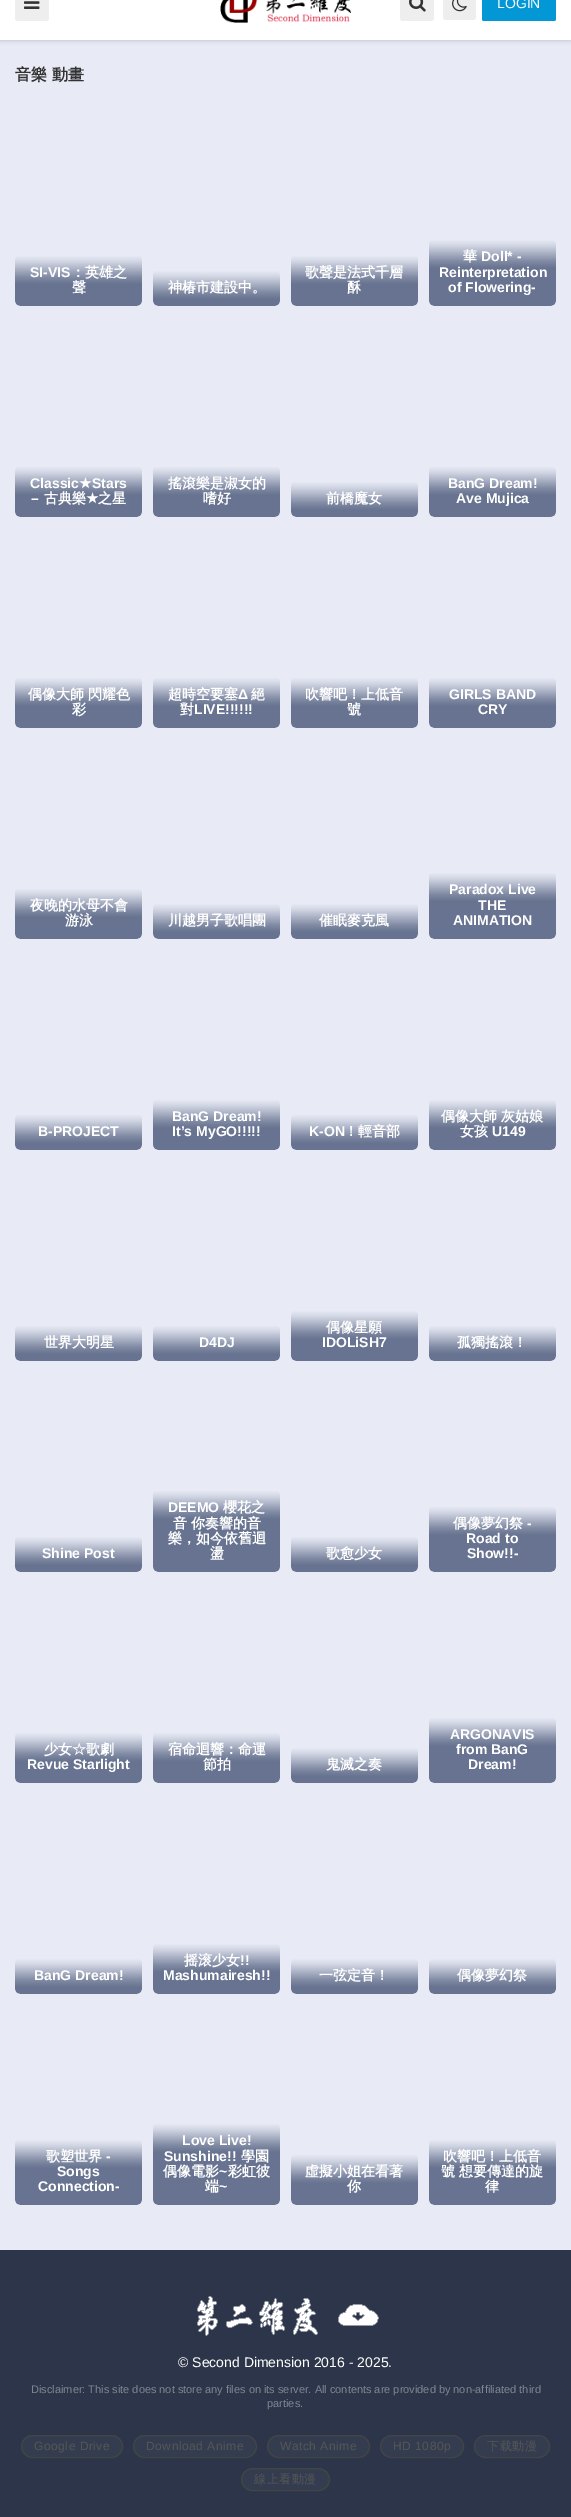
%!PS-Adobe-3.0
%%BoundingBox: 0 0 571 2517
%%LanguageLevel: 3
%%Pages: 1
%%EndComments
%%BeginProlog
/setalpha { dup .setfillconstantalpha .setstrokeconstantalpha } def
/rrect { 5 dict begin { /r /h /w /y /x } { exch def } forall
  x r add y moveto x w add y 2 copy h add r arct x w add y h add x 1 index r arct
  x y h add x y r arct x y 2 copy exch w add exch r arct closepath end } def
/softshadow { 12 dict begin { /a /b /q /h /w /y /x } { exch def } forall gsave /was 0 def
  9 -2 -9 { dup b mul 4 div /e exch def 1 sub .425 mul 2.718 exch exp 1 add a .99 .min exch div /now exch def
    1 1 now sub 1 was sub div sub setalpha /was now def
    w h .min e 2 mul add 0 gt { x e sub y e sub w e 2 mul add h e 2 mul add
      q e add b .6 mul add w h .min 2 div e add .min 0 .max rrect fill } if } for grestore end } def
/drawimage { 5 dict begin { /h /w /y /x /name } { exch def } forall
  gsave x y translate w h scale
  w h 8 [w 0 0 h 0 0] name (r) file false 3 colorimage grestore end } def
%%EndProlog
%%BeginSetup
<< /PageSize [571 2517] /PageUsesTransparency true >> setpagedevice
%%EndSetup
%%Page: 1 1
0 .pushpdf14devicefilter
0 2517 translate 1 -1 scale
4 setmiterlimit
0.91 0.922 0.961 setrgbcolor
0 0 571 2517 rectfill
0 setgray
0 -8 571 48 0 2.5 0.2 softshadow
1 setgray
0 0 571 40 rectfill
0.933 setgray
443 -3 33 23 3 rrect fill
(images/1.raw) 452 0 15 12 drawimage
15 -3 34 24 3 rrect fill
(images/2.raw) 24 1 16 8 drawimage
(images/3.raw) 220 0 131 23 drawimage
400 -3 34 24 3 rrect fill
(images/4.raw) 409 0 17 12 drawimage
0.012 0.592 0.839 setrgbcolor
482 -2 74 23 2 rrect fill
(images/5.raw) 15 256 127 50 drawimage
(images/6.raw) 153 271 127 35 drawimage
(images/5.raw) 291 256 127 50 drawimage
(images/7.raw) 429 240 127 66 drawimage
(images/8.raw) 15 467 127 50 drawimage
(images/8.raw) 153 467 127 50 drawimage
(images/9.raw) 291 482 127 35 drawimage
(images/8.raw) 429 467 127 50 drawimage
(images/10.raw) 15 678 127 50 drawimage
(images/8.raw) 153 678 127 50 drawimage
(images/10.raw) 291 678 127 50 drawimage
(images/8.raw) 429 678 127 50 drawimage
(images/10.raw) 15 889 127 50 drawimage
(images/6.raw) 153 904 127 35 drawimage
(images/11.raw) 291 904 127 35 drawimage
(images/7.raw) 429 873 127 66 drawimage
(images/9.raw) 15 1115 127 35 drawimage
(images/8.raw) 153 1100 127 50 drawimage
(images/9.raw) 291 1115 127 35 drawimage
(images/8.raw) 429 1100 127 50 drawimage
(images/9.raw) 15 1326 127 35 drawimage
(images/6.raw) 153 1326 127 35 drawimage
(images/5.raw) 291 1311 127 50 drawimage
(images/6.raw) 429 1326 127 35 drawimage
(images/9.raw) 15 1537 127 35 drawimage
(images/12.raw) 153 1491 127 81 drawimage
(images/9.raw) 291 1537 127 35 drawimage
(images/13.raw) 429 1507 127 65 drawimage
(images/8.raw) 15 1733 127 50 drawimage
(images/8.raw) 153 1733 127 50 drawimage
(images/14.raw) 291 1748 127 35 drawimage
(images/13.raw) 429 1718 127 65 drawimage
(images/11.raw) 15 1959 127 35 drawimage
(images/8.raw) 153 1944 127 50 drawimage
(images/11.raw) 291 1959 127 35 drawimage
(images/6.raw) 429 1959 127 35 drawimage
(images/15.raw) 15 2140 127 65 drawimage
(images/12.raw) 153 2124 127 81 drawimage
(images/10.raw) 291 2155 127 50 drawimage
(images/13.raw) 429 2140 127 65 drawimage
0.173 0.208 0.286 setrgbcolor
0 2250 571 267 rectfill
(images/16.raw) 197 2296 182 40 drawimage
0.204 0.239 0.314 setrgbcolor
21.5 2435.5 101 22 11 rrect gsave fill grestore
0.267 setgray
stroke
0.204 0.239 0.314 setrgbcolor
133.5 2435.5 123 22 11 rrect gsave fill grestore
0.267 setgray
stroke
0.204 0.239 0.314 setrgbcolor
267.5 2435.5 102 22 11 rrect gsave fill grestore
0.267 setgray
stroke
0.204 0.239 0.314 setrgbcolor
380.5 2435.5 83 22 11 rrect gsave fill grestore
0.267 setgray
stroke
0.204 0.239 0.314 setrgbcolor
474.5 2435.5 75 22 11 rrect gsave fill grestore
0.267 setgray
stroke
0.204 0.239 0.314 setrgbcolor
241.5 2468.5 88 22 11 rrect gsave fill grestore
0.267 setgray
stroke
/LiberationSans-Regular [14 0 0 -14 0 0] selectfont
1 setgray
497 8 moveto (LOGIN) show
/WenQuanYiZenHei-Bold [16 0 0 -16 0 0] selectfont
0.2 setgray
15 80 moveto (音樂 動畫) show
/LiberationSans-Bold [14 0 0 -14 0 0] selectfont
1 setgray
30 277 moveto (SI-VIS) show
/WenQuanYiZenHei-Bold [14 0 0 -14 0 0] selectfont
71 277 moveto (：英雄之) show
72 292 moveto (聲) show
168 292 moveto (神椿市建設中。) show
305 277 moveto (歌聲是法式千層) show
347 292 moveto (酥) show
463 261 moveto (華) show
/LiberationSans-Bold [14 0 0 -14 0 0] selectfont
481 261 moveto (Doll* -) show
439 277 moveto (Reinterpretation) show
448 292 moveto (of Flowering-) show
30 488 moveto (Classic) show
/DejaVuSans-Bold [14 0 0 -14 0 0] selectfont
79 488 moveto (★) show
/LiberationSans-Bold [14 0 0 -14 0 0] selectfont
92 488 moveto (Stars) show
31 503 moveto (–) show
/WenQuanYiZenHei-Bold [14 0 0 -14 0 0] selectfont
44 503 moveto (古典樂) show
/DejaVuSans-Bold [14 0 0 -14 0 0] selectfont
86 503 moveto (★) show
/WenQuanYiZenHei-Bold [14 0 0 -14 0 0] selectfont
98 503 moveto (之星) show
168 488 moveto (搖滾樂是淑女的) show
203 503 moveto (嗜好) show
326 503 moveto (前橋魔女) show
/LiberationSans-Bold [14 0 0 -14 0 0] selectfont
448 488 moveto (BanG Dream!) show
456 503 moveto (Ave Mujica) show
/WenQuanYiZenHei-Bold [14 0 0 -14 0 0] selectfont
28 699 moveto (偶像大師 閃耀色) show
72 714 moveto (彩) show
168 699 moveto (超時空要塞) show
/LiberationSans-Bold [14 0 0 -14 0 0] selectfont
238 699 moveto (Δ) show
/WenQuanYiZenHei-Bold [14 0 0 -14 0 0] selectfont
251 699 moveto (絕) show
180 714 moveto (對) show
/LiberationSans-Bold [14 0 0 -14 0 0] selectfont
194 714 moveto (LIVE!!!!!!) show
/WenQuanYiZenHei-Bold [14 0 0 -14 0 0] selectfont
305 699 moveto (吹響吧！上低音) show
347 714 moveto (號) show
/LiberationSans-Bold [14 0 0 -14 0 0] selectfont
449 699 moveto (GIRLS BAND) show
478 714 moveto (CRY) show
/WenQuanYiZenHei-Bold [14 0 0 -14 0 0] selectfont
30 910 moveto (夜晚的水母不會) show
65 925 moveto (游泳) show
168 925 moveto (川越男子歌唱團) show
319 925 moveto (催眠麥克風) show
/LiberationSans-Bold [14 0 0 -14 0 0] selectfont
449 894 moveto (Paradox Live) show
478 910 moveto (THE) show
453 925 moveto (ANIMATION) show
38 1136 moveto (B-PROJECT) show
172 1121 moveto (BanG Dream!) show
172 1136 moveto (It’s MyGO!!!!!) show
309 1136 moveto (K-ON) show
/WenQuanYiZenHei-Bold [14 0 0 -14 0 0] selectfont
344 1136 moveto (！輕音部) show
441 1121 moveto (偶像大師 灰姑娘) show
460 1136 moveto (女孩) show
/LiberationSans-Bold [14 0 0 -14 0 0] selectfont
492 1136 moveto (U149) show
/WenQuanYiZenHei-Bold [14 0 0 -14 0 0] selectfont
44 1347 moveto (世界大明星) show
/LiberationSans-Bold [14 0 0 -14 0 0] selectfont
199 1347 moveto (D4DJ) show
/WenQuanYiZenHei-Bold [14 0 0 -14 0 0] selectfont
326 1332 moveto (偶像星願) show
/LiberationSans-Bold [14 0 0 -14 0 0] selectfont
322 1347 moveto (IDOLiSH7) show
/WenQuanYiZenHei-Bold [14 0 0 -14 0 0] selectfont
457 1347 moveto (孤獨搖滾！) show
/LiberationSans-Bold [14 0 0 -14 0 0] selectfont
42 1558 moveto (Shine Post) show
168 1512 moveto (DEEMO) show
/WenQuanYiZenHei-Bold [14 0 0 -14 0 0] selectfont
223 1512 moveto (櫻花之) show
173 1528 moveto (音 你奏響的音) show
168 1543 moveto (樂，如今依舊迴) show
210 1558 moveto (盪) show
326 1558 moveto (歌愈少女) show
453 1528 moveto (偶像夢幻祭) show
/LiberationSans-Bold [14 0 0 -14 0 0] selectfont
527 1528 moveto (-) show
466 1543 moveto (Road to) show
467 1558 moveto (Show!!-) show
/WenQuanYiZenHei-Bold [14 0 0 -14 0 0] selectfont
44 1754 moveto (少女☆歌劇) show
/LiberationSans-Bold [14 0 0 -14 0 0] selectfont
27 1769 moveto (Revue Starlight) show
/WenQuanYiZenHei-Bold [14 0 0 -14 0 0] selectfont
168 1754 moveto (宿命迴響：命運) show
203 1769 moveto (節拍) show
326 1769 moveto (鬼滅之奏) show
/LiberationSans-Bold [14 0 0 -14 0 0] selectfont
450 1739 moveto (ARGONAVIS) show
456 1754 moveto (from BanG) show
468 1769 moveto (Dream!) show
34 1980 moveto (BanG Dream!) show
/WenQuanYiZenHei-Bold [14 0 0 -14 0 0] selectfont
184 1965 moveto (摇滚少女) show
/LiberationSans-Bold [14 0 0 -14 0 0] selectfont
240 1965 moveto (!!) show
163 1980 moveto (Mashumairesh!!) show
/WenQuanYiZenHei-Bold [14 0 0 -14 0 0] selectfont
319 1980 moveto (一弦定音！) show
457 1980 moveto (偶像夢幻祭) show
46 2161 moveto (歌塑世界) show
/LiberationSans-Bold [14 0 0 -14 0 0] selectfont
106 2161 moveto (-) show
57 2176 moveto (Songs) show
38 2191 moveto (Connection-) show
182 2145 moveto (Love Live!) show
164 2161 moveto (Sunshine!!) show
/WenQuanYiZenHei-Bold [14 0 0 -14 0 0] selectfont
241 2161 moveto (學園) show
163 2176 moveto (偶像電影) show
/LiberationSans-Bold [14 0 0 -14 0 0] selectfont
219 2176 moveto (~) show
/WenQuanYiZenHei-Bold [14 0 0 -14 0 0] selectfont
228 2176 moveto (彩虹彼) show
205 2191 moveto (端) show
/LiberationSans-Bold [14 0 0 -14 0 0] selectfont
219 2191 moveto (~) show
/WenQuanYiZenHei-Bold [14 0 0 -14 0 0] selectfont
305 2176 moveto (虛擬小姐在看著) show
347 2191 moveto (你) show
443 2161 moveto (吹響吧！上低音) show
441 2176 moveto (號 想要傳達的旋) show
485 2191 moveto (律) show
/LiberationSans-Regular [14 0 0 -14 0 0] selectfont
178 2367 moveto (© Second Dimension 2016 - 2025.) show
/LiberationSans-Regular [11 0 0 -11 0 0] selectfont
0.502 0.525 0.573 setrgbcolor
31 2393 moveto (Disclaimer: This site does not store any files on its server. All contents are provided by non-affiliated third) show
267 2407 moveto (parties.) show
/LiberationSans-Regular [12 0 0 -12 0 0] selectfont
0.333 setgray
34 2450 moveto 0.5 0 (Google Drive) ashow
146 2450 moveto 0.5 0 (Download Anime) ashow
280 2450 moveto 0.5 0 (Watch Anime) ashow
393 2450 moveto 0.5 0 (HD 1080p) ashow
/WenQuanYiZenHei-Medium [12 0 0 -12 0 0] selectfont
487 2450 moveto 0.5 0 (下载動漫) ashow
254 2483 moveto 0.5 0 (線上看動漫) ashow
.poppdf14devicefilter showpage
%%EOF
